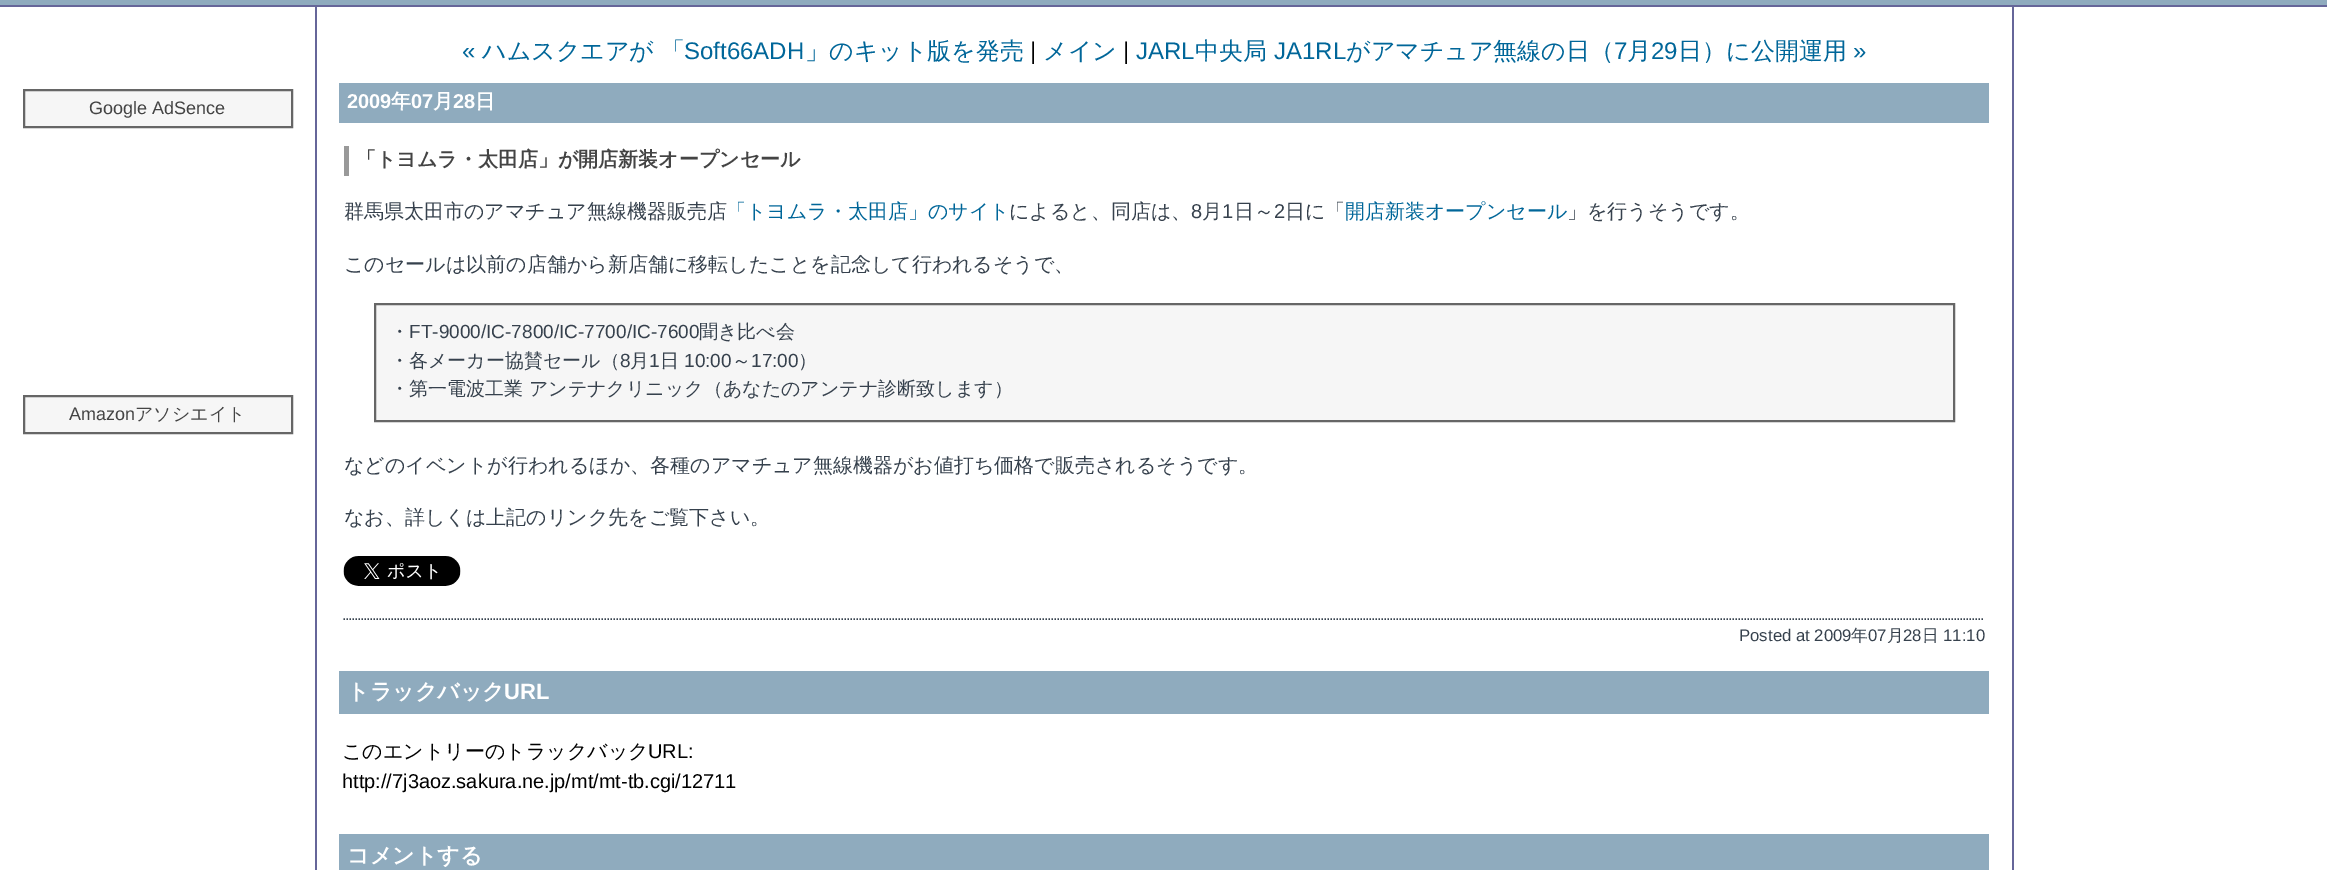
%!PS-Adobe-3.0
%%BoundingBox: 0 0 2327 870
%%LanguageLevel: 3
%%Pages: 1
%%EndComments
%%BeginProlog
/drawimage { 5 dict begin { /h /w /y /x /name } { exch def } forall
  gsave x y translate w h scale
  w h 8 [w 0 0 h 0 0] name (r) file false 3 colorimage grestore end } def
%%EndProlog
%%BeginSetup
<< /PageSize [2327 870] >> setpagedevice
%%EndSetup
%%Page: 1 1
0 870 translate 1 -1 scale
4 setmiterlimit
1 setgray
0 0 2327 870 rectfill
0.561 0.671 0.745 setrgbcolor
0 0 2327 5 rectfill
0.4 0.4 0.6 setrgbcolor
0 5 2327 2 rectfill
0.965 setgray
newpath 24 90 moveto 292 90 lineto 292 127 lineto 24 127 lineto closepath gsave fill grestore
0.4 setgray
2 setlinewidth
stroke
0.965 setgray
newpath 24 396 moveto 292 396 lineto 292 433 lineto 24 433 lineto closepath gsave fill grestore
0.4 setgray
stroke
0.4 0.4 0.6 setrgbcolor
2012 6 2 864 rectfill
315 6 2 864 rectfill
0.561 0.671 0.745 setrgbcolor
339 83 1650 40 rectfill
0.6 setgray
344 146 5 30 rectfill
0.965 setgray
newpath 375 304 moveto 1954 304 lineto 1954 421 lineto 375 421 lineto closepath gsave fill grestore
0.4 setgray
stroke
(images/1.raw) 343 556 118 30 drawimage
0.212 0.255 0.302 setrgbcolor
1.5 setlinewidth
[1.5 1.5] 0 setdash
newpath 343.5 619 moveto 1984.5 619 lineto stroke
0.561 0.671 0.745 setrgbcolor
339 671 1650 43 rectfill
339 834 1650 36 rectfill
/LiberationSans-Regular [18 0 0 -18 0 0] selectfont
0.267 setgray
89 114 moveto (Google AdSence) show
69 420 moveto (Amazon) show
/WenQuanYiZenHei-Medium [18 0 0 -18 0 0] selectfont
135 420 moveto (アソシエイト) show
/LiberationSans-Regular [24 0 0 -24 0 0] selectfont
0 0.4 0.6 setrgbcolor
462 59 moveto («) show
/WenQuanYiZenHei-Medium [24 0 0 -24 0 0] selectfont
482 59 moveto (ハムスクエアが 「) show
/LiberationSans-Regular [24 0 0 -24 0 0] selectfont
684 59 moveto (Soft66ADH) show
/WenQuanYiZenHei-Medium [24 0 0 -24 0 0] selectfont
805 59 moveto (」のキット版を発売) show
/LiberationSans-Regular [24 0 0 -24 0 0] selectfont
0 setgray
1030 59 moveto (|) show
/WenQuanYiZenHei-Medium [24 0 0 -24 0 0] selectfont
0 0.4 0.6 setrgbcolor
1043 59 moveto (メイン) show
/LiberationSans-Regular [24 0 0 -24 0 0] selectfont
0 setgray
1123 59 moveto (|) show
0 0.4 0.6 setrgbcolor
1136 59 moveto (JARL) show
/WenQuanYiZenHei-Medium [24 0 0 -24 0 0] selectfont
1195 59 moveto (中央局) show
/LiberationSans-Regular [24 0 0 -24 0 0] selectfont
1274 59 moveto (JA1RL) show
/WenQuanYiZenHei-Medium [24 0 0 -24 0 0] selectfont
1346 59 moveto (がアマチュア無線の日（) show
/LiberationSans-Regular [24 0 0 -24 0 0] selectfont
1614 59 moveto (7) show
/WenQuanYiZenHei-Medium [24 0 0 -24 0 0] selectfont
1627 59 moveto (月) show
/LiberationSans-Regular [24 0 0 -24 0 0] selectfont
1651 59 moveto (29) show
/WenQuanYiZenHei-Medium [24 0 0 -24 0 0] selectfont
1678 59 moveto (日）に公開運用) show
/LiberationSans-Regular [24 0 0 -24 0 0] selectfont
1853 59 moveto (») show
/LiberationSans-Bold [20 0 0 -20 0 0] selectfont
1 setgray
347 108 moveto (2009) show
/WenQuanYiZenHei-Bold [20 0 0 -20 0 0] selectfont
391 108 moveto (年) show
/LiberationSans-Bold [20 0 0 -20 0 0] selectfont
411 108 moveto (07) show
/WenQuanYiZenHei-Bold [20 0 0 -20 0 0] selectfont
433 108 moveto (月) show
/LiberationSans-Bold [20 0 0 -20 0 0] selectfont
453 108 moveto (28) show
/WenQuanYiZenHei-Bold [20 0 0 -20 0 0] selectfont
475 108 moveto (日) show
0.267 setgray
356 166 moveto (「トヨムラ・太田店」が開店新装オープンセール) show
/WenQuanYiZenHei-Medium [20 0 0 -20 0 0] selectfont
0.212 0.255 0.302 setrgbcolor
344 218 moveto (群馬県太田市のアマチュア無線機器販売店) show
0 0.4 0.6 setrgbcolor
726 218 moveto (「トヨムラ・太田店」のサイト) show
0.212 0.255 0.302 setrgbcolor
1009 218 moveto (によると、同店は、) show
/LiberationSans-Regular [20 0 0 -20 0 0] selectfont
1191 218 moveto (8) show
/WenQuanYiZenHei-Medium [20 0 0 -20 0 0] selectfont
1202 218 moveto (月) show
/LiberationSans-Regular [20 0 0 -20 0 0] selectfont
1222 218 moveto (1) show
/WenQuanYiZenHei-Medium [20 0 0 -20 0 0] selectfont
1234 218 moveto (日～) show
/LiberationSans-Regular [20 0 0 -20 0 0] selectfont
1274 218 moveto (2) show
/WenQuanYiZenHei-Medium [20 0 0 -20 0 0] selectfont
1285 218 moveto (日に「) show
0 0.4 0.6 setrgbcolor
1345 218 moveto (開店新装オープンセール) show
0.212 0.255 0.302 setrgbcolor
1567 218 moveto (」を行うそうです。) show
344 271 moveto (このセールは以前の店舗から新店舗に移転したことを記念して行われるそうで、) show
/WenQuanYiZenHei-Medium [19 0 0 -19 0 0] selectfont
390 338 moveto (・) show
/LiberationSans-Regular [19 0 0 -19 0 0] selectfont
409 338 moveto (FT-9000/IC-7800/IC-7700/IC-7600) show
/WenQuanYiZenHei-Medium [19 0 0 -19 0 0] selectfont
699 338 moveto (聞き比べ会) show
390 367 moveto (・各メーカー協賛セール（) show
/LiberationSans-Regular [19 0 0 -19 0 0] selectfont
620 367 moveto (8) show
/WenQuanYiZenHei-Medium [19 0 0 -19 0 0] selectfont
630 367 moveto (月) show
/LiberationSans-Regular [19 0 0 -19 0 0] selectfont
649 367 moveto (1) show
/WenQuanYiZenHei-Medium [19 0 0 -19 0 0] selectfont
660 367 moveto (日) show
/LiberationSans-Regular [19 0 0 -19 0 0] selectfont
684 367 moveto (10:00) show
/WenQuanYiZenHei-Medium [19 0 0 -19 0 0] selectfont
732 367 moveto (～) show
/LiberationSans-Regular [19 0 0 -19 0 0] selectfont
751 367 moveto (17:00) show
/WenQuanYiZenHei-Medium [19 0 0 -19 0 0] selectfont
798 367 moveto (）) show
390 395 moveto (・第一電波工業 アンテナクリニック（あなたのアンテナ診断致します）) show
/WenQuanYiZenHei-Medium [20 0 0 -20 0 0] selectfont
344 472 moveto (などのイベントが行われるほか、各種のアマチュア無線機器がお値打ち価格で販売されるそうです。) show
344 524 moveto (なお、詳しくは上記のリンク先をご覧下さい。) show
/LiberationSans-Regular [16.75 0 0 -16.75 0 0] selectfont
1739 641 moveto (Posted at 2009) show
/WenQuanYiZenHei-Medium [16.75 0 0 -16.75 0 0] selectfont
1851 641 moveto (年) show
/LiberationSans-Regular [16.75 0 0 -16.75 0 0] selectfont
1868 641 moveto (07) show
/WenQuanYiZenHei-Medium [16.75 0 0 -16.75 0 0] selectfont
1887 641 moveto (月) show
/LiberationSans-Regular [16.75 0 0 -16.75 0 0] selectfont
1903 641 moveto (28) show
/WenQuanYiZenHei-Medium [16.75 0 0 -16.75 0 0] selectfont
1922 641 moveto (日) show
/LiberationSans-Regular [16.75 0 0 -16.75 0 0] selectfont
1943 641 moveto (11:10) show
/WenQuanYiZenHei-Bold [22 0 0 -22 0 0] selectfont
1 setgray
347 699 moveto (トラックバック) show
/LiberationSans-Bold [22 0 0 -22 0 0] selectfont
504 699 moveto (URL) show
/WenQuanYiZenHei-Medium [20 0 0 -20 0 0] selectfont
0 setgray
342 758 moveto (このエントリーのトラックバック) show
/LiberationSans-Regular [20 0 0 -20 0 0] selectfont
648 758 moveto (URL:) show
342 788 moveto (http://7j3aoz.sakura.ne.jp/mt/mt-tb.cgi/12711) show
/WenQuanYiZenHei-Bold [22 0 0 -22 0 0] selectfont
1 setgray
347 863 moveto (コメントする) show
showpage
%%EOF
